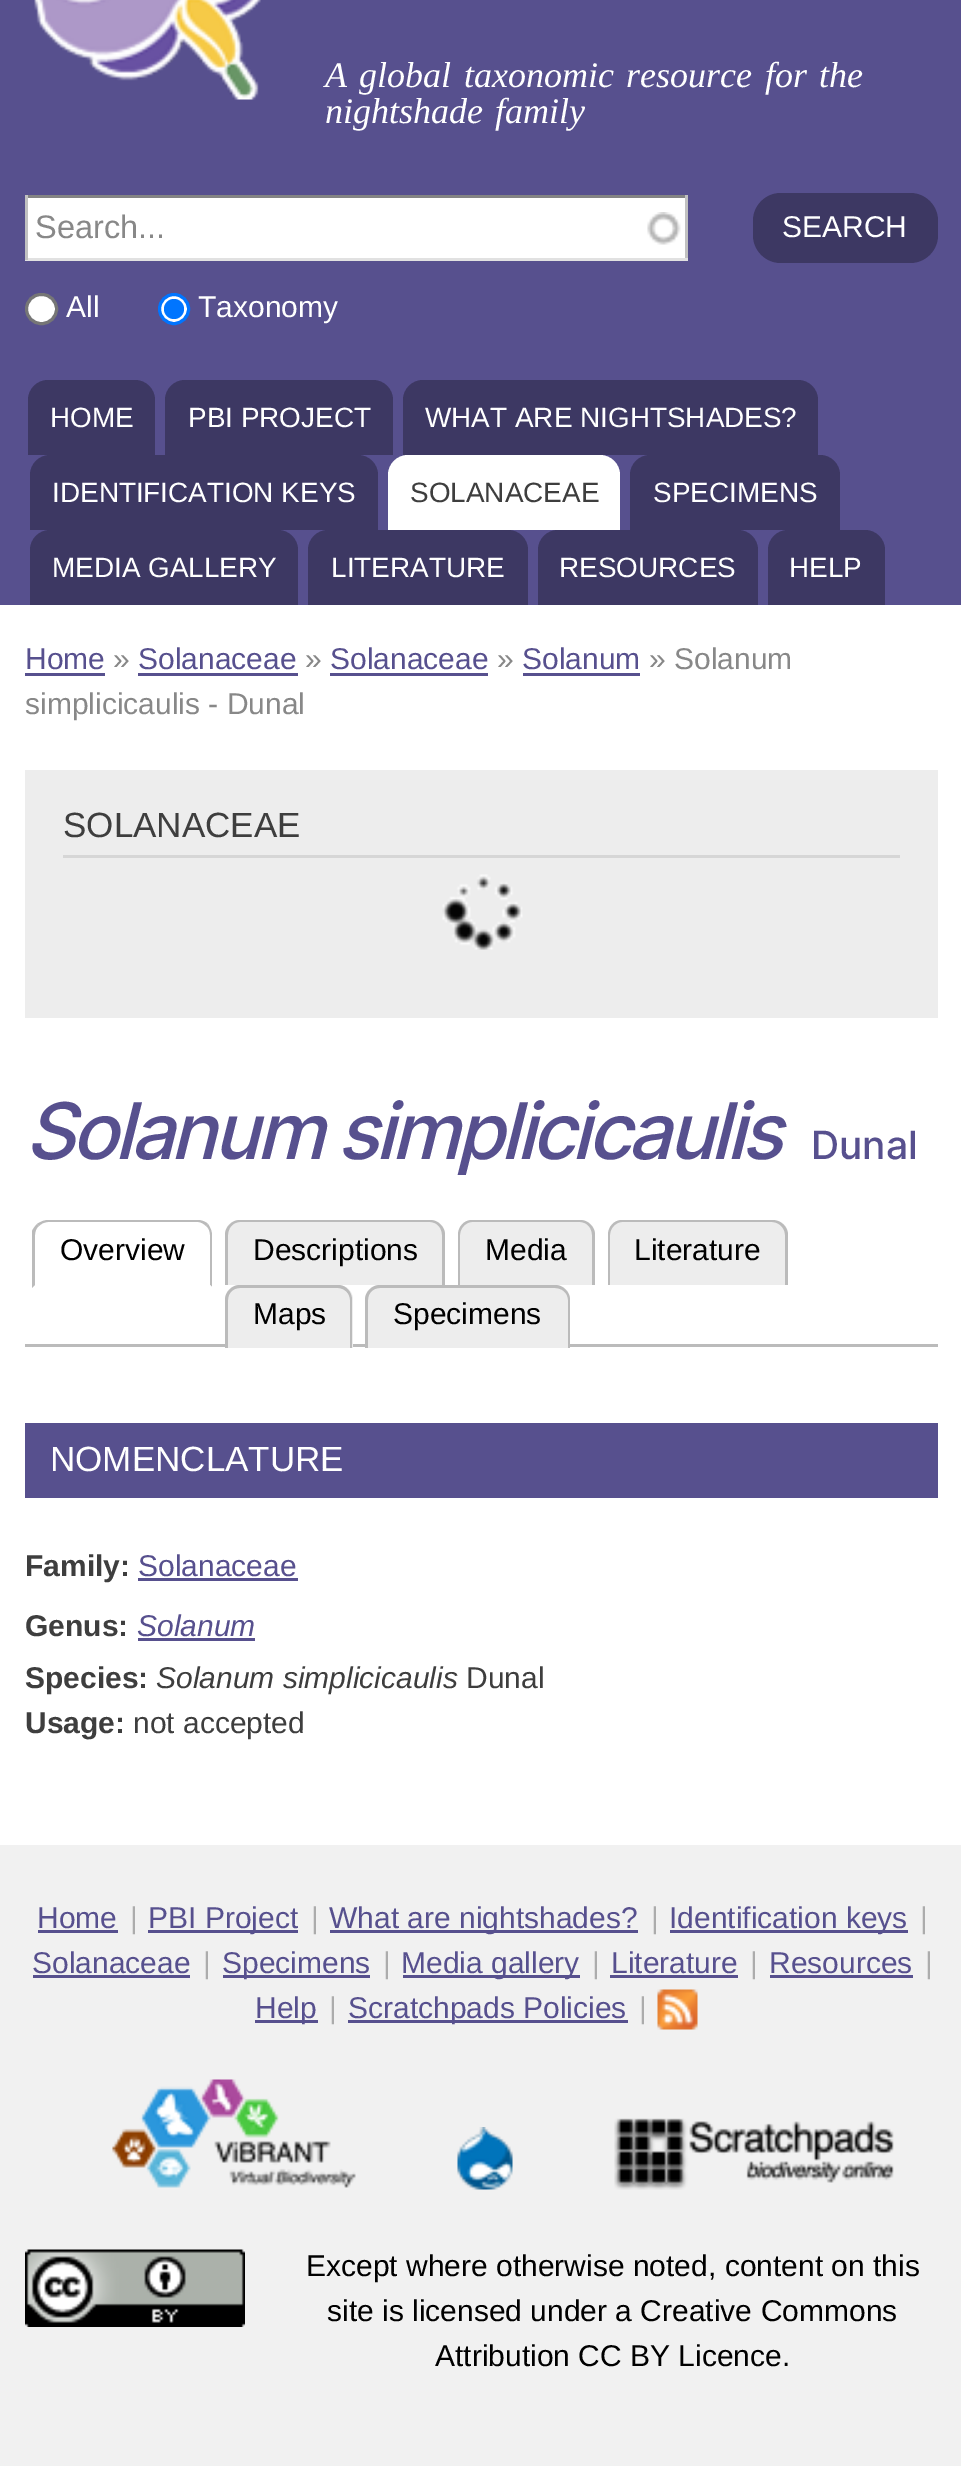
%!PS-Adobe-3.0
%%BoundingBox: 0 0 961 2466
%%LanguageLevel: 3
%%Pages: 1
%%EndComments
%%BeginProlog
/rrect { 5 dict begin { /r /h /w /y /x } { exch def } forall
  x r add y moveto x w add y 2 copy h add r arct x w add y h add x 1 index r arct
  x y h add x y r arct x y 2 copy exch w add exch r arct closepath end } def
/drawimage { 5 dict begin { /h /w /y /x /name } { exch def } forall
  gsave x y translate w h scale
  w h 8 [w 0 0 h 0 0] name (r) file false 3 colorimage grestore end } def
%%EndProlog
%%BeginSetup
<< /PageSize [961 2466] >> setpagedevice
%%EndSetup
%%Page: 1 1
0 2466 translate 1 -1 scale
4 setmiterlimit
1 setgray
0 0 961 2466 rectfill
0.341 0.314 0.557 setrgbcolor
0 0 961 605 rectfill
(images/1.raw) 34 0 227 100 drawimage
1 setgray
28 198 657 60 rectfill
(images/2.raw) 647 212 34 33 drawimage
0.518 setgray
25 195 663 3 rectfill
0.757 setgray
685 195 3 65 rectfill
0.882 setgray
25 258 663 3 rectfill
0.757 setgray
25 195 3 65 rectfill
0.239 0.22 0.388 setrgbcolor
753 193 185 70 28 rrect fill
1 setgray
26.5 294.5 30 29 14.5 rrect gsave fill grestore
0.463 setgray
3 setlinewidth
stroke
1 setgray
newpath 174 309 14.5 0 360 arc closepath gsave fill grestore
0 0.459 1 setrgbcolor
stroke
newpath 174 309 10 0 360 arc closepath fill
0.239 0.22 0.388 setrgbcolor
newpath 48 380 moveto 135 380 lineto 146 380 155 389 155 400 curveto 155 455 lineto 28 455 lineto 28 400 lineto 28 389 37 380 48 380 curveto closepath fill
newpath 185 380 moveto 373 380 lineto 384 380 393 389 393 400 curveto 393 455 lineto 165 455 lineto 165 400 lineto 165 389 174 380 185 380 curveto closepath fill
newpath 423 380 moveto 798 380 lineto 809 380 818 389 818 400 curveto 818 455 lineto 403 455 lineto 403 400 lineto 403 389 412 380 423 380 curveto closepath fill
newpath 50 455 moveto 358 455 lineto 369 455 378 464 378 475 curveto 378 530 lineto 30 530 lineto 30 475 lineto 30 464 39 455 50 455 curveto closepath fill
1 setgray
newpath 408 455 moveto 600 455 lineto 611 455 620 464 620 475 curveto 620 530 lineto 388 530 lineto 388 475 lineto 388 464 397 455 408 455 curveto closepath fill
0.239 0.22 0.388 setrgbcolor
newpath 650 455 moveto 820 455 lineto 831 455 840 464 840 475 curveto 840 530 lineto 630 530 lineto 630 475 lineto 630 464 639 455 650 455 curveto closepath fill
newpath 50 530 moveto 278 530 lineto 289 530 298 539 298 550 curveto 298 605 lineto 30 605 lineto 30 550 lineto 30 539 39 530 50 530 curveto closepath fill
newpath 328 530 moveto 508 530 lineto 519 530 528 539 528 550 curveto 528 605 lineto 308 605 lineto 308 550 lineto 308 539 317 530 328 530 curveto closepath fill
newpath 558 530 moveto 738 530 lineto 749 530 758 539 758 550 curveto 758 605 lineto 538 605 lineto 538 550 lineto 538 539 547 530 558 530 curveto closepath fill
newpath 788 530 moveto 865 530 lineto 876 530 885 539 885 550 curveto 885 605 lineto 768 605 lineto 768 550 lineto 768 539 777 530 788 530 curveto closepath fill
0.341 0.314 0.557 setrgbcolor
25 673 80 3 rectfill
138 673 160 3 rectfill
330 673 158 3 rectfill
523 673 117 3 rectfill
0.929 setgray
25 770 913 248 rectfill
0.839 setgray
63 855 837 3 rectfill
(images/3.raw) 442 874 81 76 drawimage
0.733 setgray
25 1344 913 3 rectfill
newpath 48 1220 moveto 44 1220 40 1222 37 1224 curveto 39 1226 lineto 41 1224 44 1222 48 1222 curveto 198 1222 lineto 201 1222 204 1224 206 1226 curveto 208 1224 lineto 206 1222 202 1220 198 1220 curveto closepath fill
newpath 208 1224 moveto 210 1227 212 1231 212 1235 curveto 212 1287 lineto 210 1285 lineto 210 1235 lineto 210 1232 209 1228 206 1226 curveto closepath fill
1 setgray
newpath 212 1287 moveto 212 1288 lineto 32 1288 lineto 35 1285 lineto 210 1285 lineto closepath fill
0.733 setgray
newpath 32 1288 moveto 32 1231 lineto 33 1229 35 1226 37 1224 curveto 39 1226 lineto 36 1228 35 1232 35 1235 curveto 35 1285 lineto closepath fill
0.929 setgray
newpath 240 1220 moveto 430 1220 lineto 438.5 1220 445 1226.5 445 1235 curveto 445 1285 lineto 225 1285 lineto 225 1235 lineto 225 1226.5 231.5 1220 240 1220 curveto closepath fill
0.733 setgray
newpath 240 1220 moveto 430 1220 lineto 438 1220 445 1227 445 1235 curveto 445 1285 lineto 225 1285 lineto 225 1235 lineto 225 1227 232 1220 240 1220 curveto closepath 240 1222 moveto 430 1222 lineto 437 1222 442 1228 442 1235 curveto 442 1285 lineto 228 1285 lineto 228 1235 lineto 228 1228 233 1222 240 1222 curveto closepath eofill
0.929 setgray
newpath 473 1220 moveto 580 1220 lineto 588.5 1220 595 1226.5 595 1235 curveto 595 1285 lineto 458 1285 lineto 458 1235 lineto 458 1226.5 464.5 1220 473 1220 curveto closepath fill
0.733 setgray
newpath 472 1220 moveto 580 1220 lineto 588 1220 595 1227 595 1235 curveto 595 1285 lineto 458 1285 lineto 458 1235 lineto 458 1227 464 1220 472 1220 curveto closepath 472 1222 moveto 580 1222 lineto 587 1222 592 1228 592 1235 curveto 592 1285 lineto 460 1285 lineto 460 1235 lineto 460 1228 466 1222 472 1222 curveto closepath eofill
0.929 setgray
newpath 623 1220 moveto 773 1220 lineto 781.5 1220 788 1226.5 788 1235 curveto 788 1285 lineto 608 1285 lineto 608 1235 lineto 608 1226.5 614.5 1220 623 1220 curveto closepath fill
0.733 setgray
newpath 622 1220 moveto 772 1220 lineto 781 1220 788 1227 788 1235 curveto 788 1285 lineto 608 1285 lineto 608 1235 lineto 608 1227 614 1220 622 1220 curveto closepath 622 1222 moveto 772 1222 lineto 779 1222 785 1228 785 1235 curveto 785 1285 lineto 610 1285 lineto 610 1235 lineto 610 1228 616 1222 622 1222 curveto closepath eofill
0.929 setgray
newpath 240 1285 moveto 338 1285 lineto 346.5 1285 353 1291.5 353 1300 curveto 353 1348 lineto 225 1348 lineto 225 1300 lineto 225 1291.5 231.5 1285 240 1285 curveto closepath fill
0.733 setgray
newpath 240 1285 moveto 338 1285 lineto 346 1285 352 1292 352 1300 curveto 352 1348 lineto 225 1348 lineto 225 1300 lineto 225 1292 232 1285 240 1285 curveto closepath 240 1288 moveto 338 1288 lineto 344 1288 350 1293 350 1300 curveto 350 1348 lineto 228 1348 lineto 228 1300 lineto 228 1293 233 1288 240 1288 curveto closepath eofill
0.929 setgray
newpath 380 1285 moveto 555 1285 lineto 563.5 1285 570 1291.5 570 1300 curveto 570 1348 lineto 365 1348 lineto 365 1300 lineto 365 1291.5 371.5 1285 380 1285 curveto closepath fill
0.733 setgray
newpath 380 1285 moveto 555 1285 lineto 563 1285 570 1292 570 1300 curveto 570 1348 lineto 365 1348 lineto 365 1300 lineto 365 1292 372 1285 380 1285 curveto closepath 380 1288 moveto 555 1288 lineto 562 1288 568 1293 568 1300 curveto 568 1348 lineto 368 1348 lineto 368 1300 lineto 368 1293 373 1288 380 1288 curveto closepath eofill
0.341 0.314 0.557 setrgbcolor
25 1423 913 75 rectfill
138 1578 160 3 rectfill
138 1638 117 3 rectfill
0.945 setgray
0 1845 961 621 rectfill
0.341 0.314 0.557 setrgbcolor
38 1930 80 3 rectfill
148 1930 150 3 rectfill
330 1930 308 3 rectfill
670 1930 238 3 rectfill
33 1975 157 3 rectfill
223 1975 147 3 rectfill
403 1975 177 3 rectfill
610 1975 128 3 rectfill
770 1975 143 3 rectfill
255 2020 63 3 rectfill
348 2020 280 3 rectfill
(images/4.raw) 657 1989 41 41 drawimage
(images/5.raw) 112 2079 244 109 drawimage
(images/6.raw) 457 2127 56 63 drawimage
(images/7.raw) 614 2118 280 72 drawimage
(images/8.raw) 25 2249 220 78 drawimage
/LiberationSerif-Italic [36 0 0 -36 0 0] selectfont
1 setgray
325 87 moveto 3.5 0 32 (A global taxonomic resource for the) widthshow
325 123 moveto 3.5 0 32 (nightshade family) widthshow
/LiberationSans-Regular [32.5 0 0 -32.5 0 0] selectfont
0.533 setgray
35 238 moveto (Search...) show
/LiberationSans-Regular [30 0 0 -30 0 0] selectfont
1 setgray
782 237 moveto (SEARCH) show
66 317 moveto (All) show
198 317 moveto (Taxonomy) show
/LiberationSans-Regular [27.9 0 0 -27.9 0 0] selectfont
50 427 moveto (HOME) show
188 427 moveto (PBI PROJECT) show
425 427 moveto (WHAT ARE NIGHTSHADES?) show
52 502 moveto (IDENTIFICATION KEYS) show
0.243 setgray
410 502 moveto (SOLANACEAE) show
1 setgray
653 502 moveto (SPECIMENS) show
52 577 moveto (MEDIA GALLERY) show
331 577 moveto (LITERATURE) show
559 577 moveto (RESOURCES) show
789 577 moveto (HELP) show
/LiberationSans-Regular [30 0 0 -30 0 0] selectfont
0.341 0.314 0.557 setrgbcolor
25 669 moveto (Home) show
0.533 setgray
113 669 moveto (») show
0.341 0.314 0.557 setrgbcolor
138 669 moveto (Solanaceae) show
0.533 setgray
305 669 moveto (») show
0.341 0.314 0.557 setrgbcolor
330 669 moveto (Solanaceae) show
0.533 setgray
497 669 moveto (») show
0.341 0.314 0.557 setrgbcolor
522 669 moveto (Solanum) show
0.533 setgray
649 669 moveto (» Solanum) show
25 714 moveto (simplicicaulis - Dunal) show
/LiberationSans-Regular [35 0 0 -35 0 0] selectfont
0.243 setgray
63 837 moveto (SOLANACEAE) show
/Inter-MediumItalic [78 0 0 -78 0 0] selectfont
0.341 0.314 0.557 setrgbcolor
25 1159 moveto -3.9 0 (Solanum simplicicaulis) ashow
/Inter-Medium [39 0 0 -39 0 0] selectfont
811 1159 moveto (Dunal) show
/LiberationSans-Regular [30 0 0 -30 0 0] selectfont
0 setgray
60 1260 moveto (Overview) show
253 1260 moveto (Descriptions) show
485 1260 moveto (Media) show
634 1260 moveto (Literature) show
253 1324 moveto (Maps) show
393 1324 moveto (Specimens) show
/LiberationSans-Regular [35 0 0 -35 0 0] selectfont
1 setgray
50 1471 moveto (NOMENCLATURE) show
/LiberationSans-Bold [30 0 0 -30 0 0] selectfont
0.243 setgray
25 1576 moveto (Family:) show
/LiberationSans-Regular [30 0 0 -30 0 0] selectfont
0.341 0.314 0.557 setrgbcolor
138 1576 moveto (Solanaceae) show
/LiberationSans-Bold [30 0 0 -30 0 0] selectfont
0.243 setgray
25 1636 moveto (Genus:) show
/LiberationSans-Italic [30 0 0 -30 0 0] selectfont
0.341 0.314 0.557 setrgbcolor
137 1636 moveto (Solanum) show
/LiberationSans-Bold [30 0 0 -30 0 0] selectfont
0.243 setgray
25 1688 moveto (Species:) show
/LiberationSans-Italic [30 0 0 -30 0 0] selectfont
156 1688 moveto (Solanum simplicicaulis) show
/LiberationSans-Regular [30 0 0 -30 0 0] selectfont
466 1688 moveto (Dunal) show
/LiberationSans-Bold [30 0 0 -30 0 0] selectfont
25 1733 moveto (Usage:) show
/LiberationSans-Regular [30 0 0 -30 0 0] selectfont
133 1733 moveto (not accepted) show
0.341 0.314 0.557 setrgbcolor
37 1928 moveto (Home) show
0.675 setgray
130 1928 moveto (|) show
0.341 0.314 0.557 setrgbcolor
148 1928 moveto (PBI Project) show
0.675 setgray
311 1928 moveto (|) show
0.341 0.314 0.557 setrgbcolor
329 1928 moveto (What are nightshades?) show
0.675 setgray
651 1928 moveto (|) show
0.341 0.314 0.557 setrgbcolor
669 1928 moveto (Identification keys) show
0.675 setgray
920 1928 moveto (|) show
0.341 0.314 0.557 setrgbcolor
32 1973 moveto (Solanaceae) show
0.675 setgray
203 1973 moveto (|) show
0.341 0.314 0.557 setrgbcolor
222 1973 moveto (Specimens) show
0.675 setgray
383 1973 moveto (|) show
0.341 0.314 0.557 setrgbcolor
401 1973 moveto (Media gallery) show
0.675 setgray
592 1973 moveto (|) show
0.341 0.314 0.557 setrgbcolor
611 1973 moveto (Literature) show
0.675 setgray
750 1973 moveto (|) show
0.341 0.314 0.557 setrgbcolor
769 1973 moveto (Resources) show
0.675 setgray
925 1973 moveto (|) show
0.341 0.314 0.557 setrgbcolor
255 2018 moveto (Help) show
0.675 setgray
329 2018 moveto (|) show
0.341 0.314 0.557 setrgbcolor
348 2018 moveto (Scratchpads Policies) show
0.675 setgray
639 2018 moveto (|) show
0 setgray
306 2276 moveto (Except where otherwise noted, content on this) show
327 2321 moveto (site is licensed under a Creative Commons) show
435 2366 moveto (Attribution CC BY Licence.) show
showpage
%%EOF
